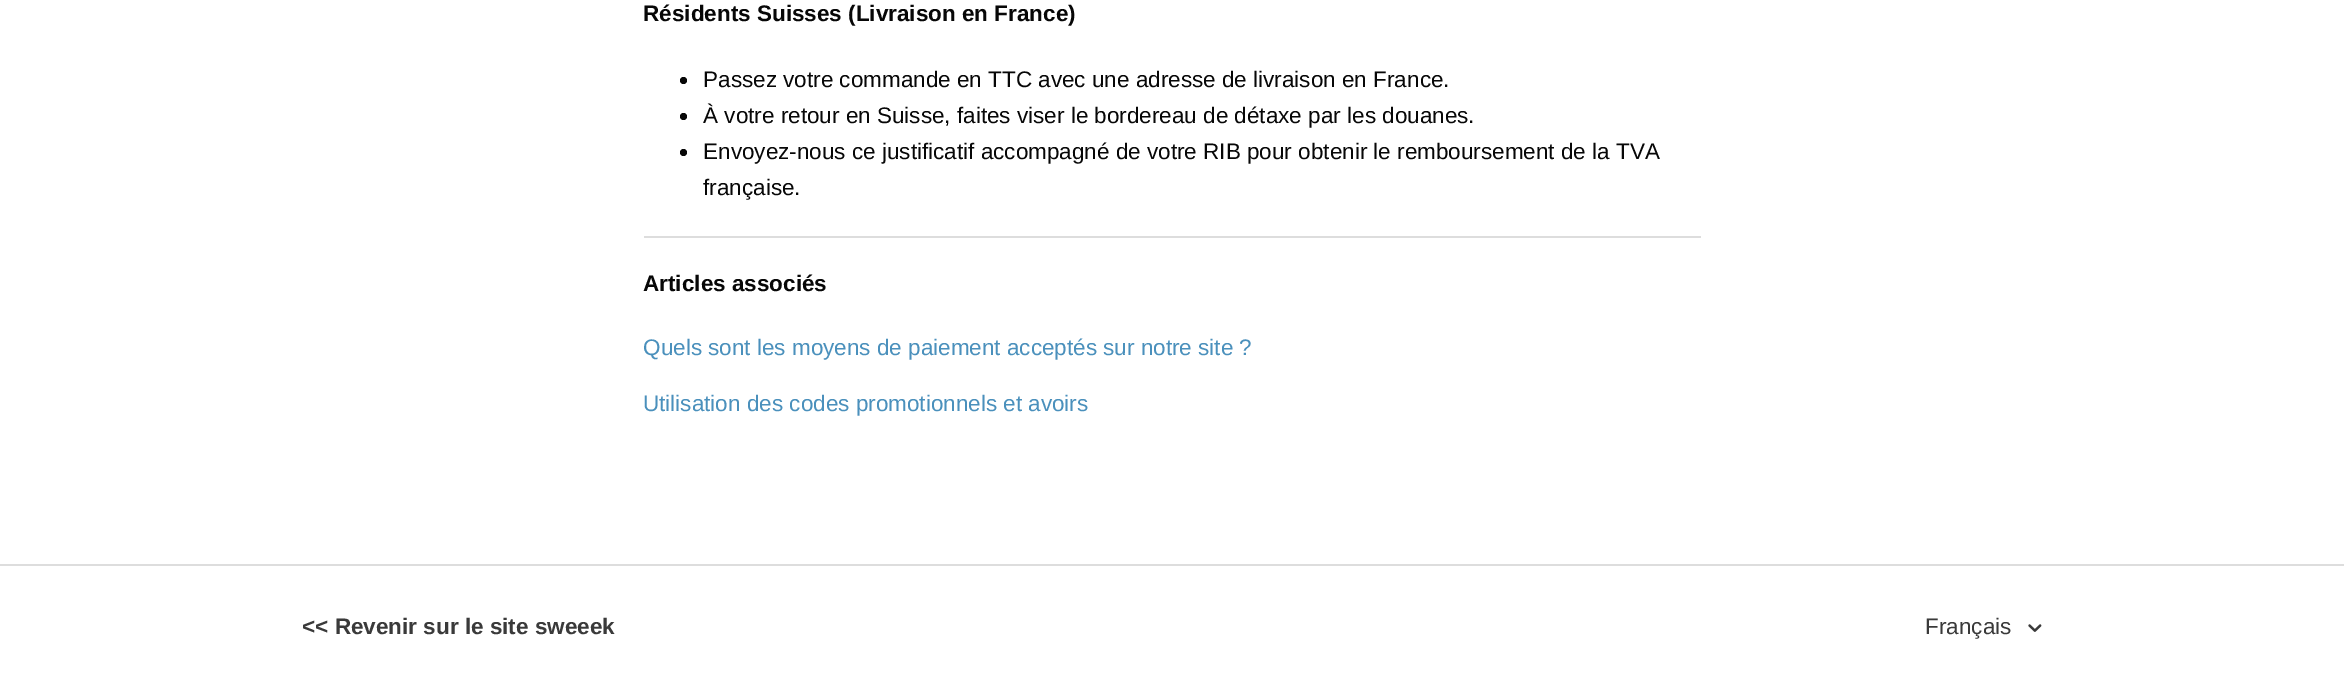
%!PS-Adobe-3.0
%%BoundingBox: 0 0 2344 689
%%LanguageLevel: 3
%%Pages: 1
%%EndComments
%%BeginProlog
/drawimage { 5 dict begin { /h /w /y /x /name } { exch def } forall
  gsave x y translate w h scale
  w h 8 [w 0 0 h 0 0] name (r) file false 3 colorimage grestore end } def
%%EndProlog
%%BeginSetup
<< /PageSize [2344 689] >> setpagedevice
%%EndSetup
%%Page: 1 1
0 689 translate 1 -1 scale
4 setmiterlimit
1 setgray
0 0 2344 689 rectfill
0.027 setgray
newpath 683.5 80.5 3.5 0 360 arc closepath fill
newpath 683.5 116.5 3.5 0 360 arc closepath fill
newpath 683.5 152.5 3.5 0 360 arc closepath fill
0.867 setgray
644 236 1057 2 rectfill
0 564 2344 2 rectfill
(images/1.raw) 2028 624 14 8 drawimage
/LiberationSans-Bold [22.5 0 0 -22.5 0 0] selectfont
0.027 setgray
643 21 moveto (Résidents Suisses \(Livraison en France\)) show
/LiberationSans-Regular [22.5 0 0 -22.5 0 0] selectfont
703 87 moveto (Passez votre commande en TTC avec une adresse de livraison en France.) show
703 123 moveto (À votre retour en Suisse, faites viser le bordereau de détaxe par les douanes.) show
703 159 moveto (Envoyez-nous ce justificatif accompagné de votre RIB pour obtenir le remboursement de la TVA) show
703 195 moveto (française.) show
/LiberationSans-Bold [22.5 0 0 -22.5 0 0] selectfont
643 291 moveto (Articles associés) show
/LiberationSans-Regular [22.5 0 0 -22.5 0 0] selectfont
0.29 0.565 0.737 setrgbcolor
643 355 moveto (Quels sont les moyens de paiement acceptés sur notre site ?) show
643 411 moveto (Utilisation des codes promotionnels et avoirs) show
/LiberationSans-Bold [22.5 0 0 -22.5 0 0] selectfont
0.227 setgray
302 634 moveto (<< Revenir sur le site sweeek) show
/LiberationSans-Regular [22.5 0 0 -22.5 0 0] selectfont
1925 634 moveto (Français) show
showpage
%%EOF
